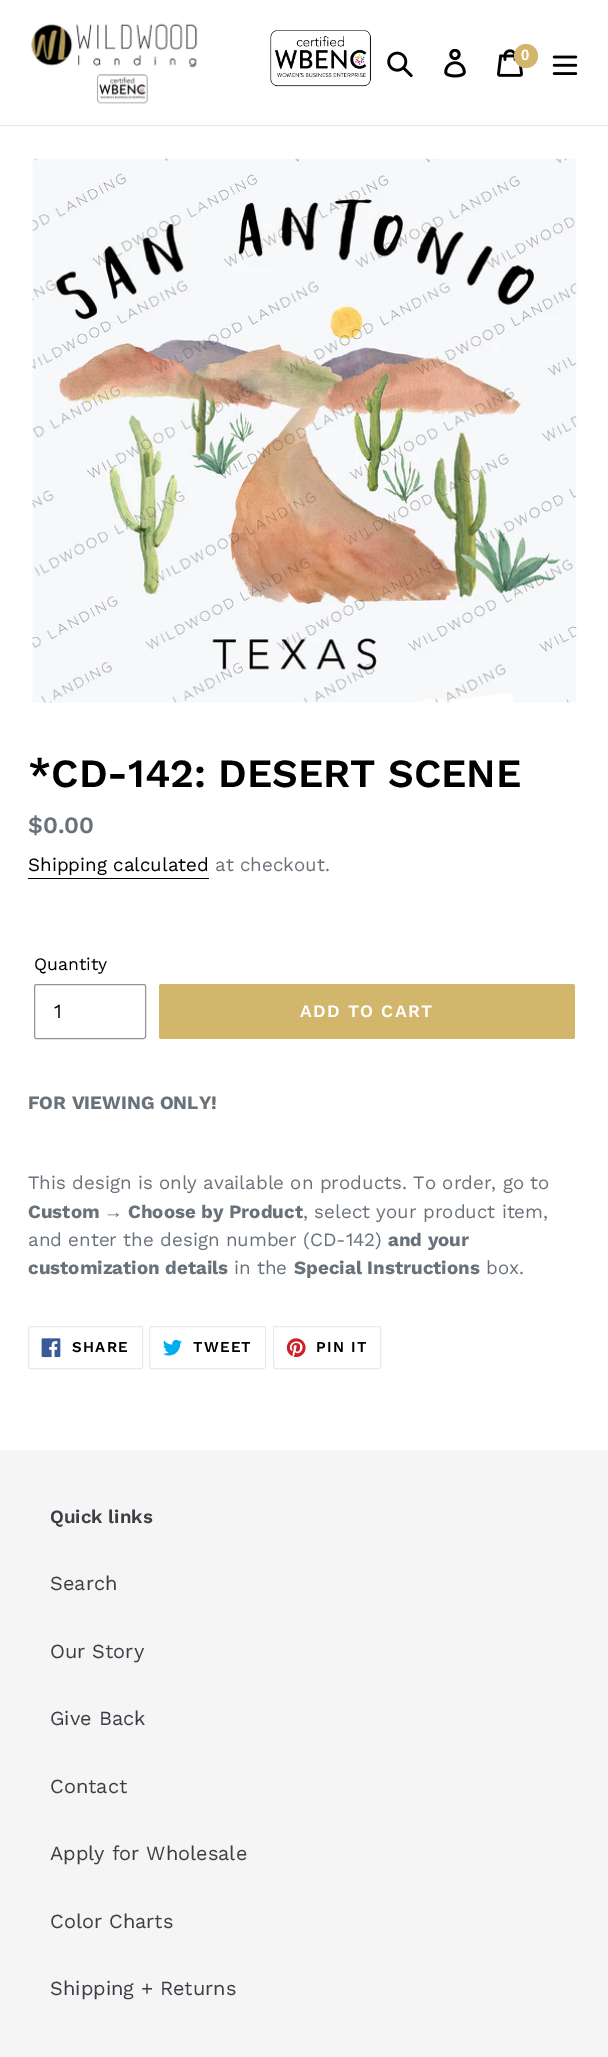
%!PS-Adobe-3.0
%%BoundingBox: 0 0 608 2057
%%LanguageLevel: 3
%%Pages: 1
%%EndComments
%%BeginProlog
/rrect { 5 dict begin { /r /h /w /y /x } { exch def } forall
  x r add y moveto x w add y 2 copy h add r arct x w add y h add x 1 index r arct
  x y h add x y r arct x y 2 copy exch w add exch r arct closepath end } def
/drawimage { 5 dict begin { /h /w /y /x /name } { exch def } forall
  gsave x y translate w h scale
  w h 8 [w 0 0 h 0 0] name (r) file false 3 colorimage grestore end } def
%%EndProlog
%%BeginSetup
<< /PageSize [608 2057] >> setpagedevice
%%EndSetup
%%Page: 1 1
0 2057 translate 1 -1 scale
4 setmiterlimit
1 setgray
0 0 608 2057 rectfill
0.91 0.914 0.922 setrgbcolor
0 125 608 1 rectfill
(images/1.raw) 30 23 168 81 drawimage
(images/2.raw) 270 30 101 57 drawimage
(images/3.raw) 387 51 26 27 drawimage
(images/4.raw) 444 49 22 29 drawimage
(images/5.raw) 497 49 26 28 drawimage
0.82 0.714 0.424 setrgbcolor
newpath 526 56 12 0 360 arc closepath fill
(images/6.raw) 552 55 26 20 drawimage
(images/7.raw) 32 158 545 545 drawimage
0 setgray
28 878 181 1 rectfill
0.58 setgray
34.5 984.5 111 54 2 rrect stroke
0.82 0.714 0.424 setrgbcolor
159 984 416 55 2.5 rrect fill
0.91 0.914 0.922 setrgbcolor
28.5 1326.5 114 42 2 rrect stroke
(images/8.raw) 41 1338 20 20 drawimage
149.5 1326.5 116 42 2 rrect stroke
(images/9.raw) 163 1339 19 17 drawimage
273.5 1326.5 107 42 2 rrect stroke
(images/10.raw) 286 1338 20 20 drawimage
0.961 setgray
0 1450 608 607 rectfill
/LiberationSans-Bold [15 0 0 -15 0 0] selectfont
1 setgray
521 60 moveto (0) show
/WorkSans-SemiBold [40 0 0 -40 0 0] selectfont
0 setgray
28 787 moveto (*CD-142: DESERT SCENE) show
/WorkSans-SemiBold [23.5 0 0 -23.5 0 0] selectfont
0.412 0.447 0.482 setrgbcolor
28 833 moveto ($0.00) show
/WorkSans-Regular [18.75 0 0 -18.75 0 0] selectfont
0 setgray
28 871 moveto (Shipping calculated) show
0.412 0.447 0.482 setrgbcolor
215 871 moveto (at checkout.) show
/WorkSans-Regular [17.5 0 0 -17.5 0 0] selectfont
0 setgray
34 970 moveto (Quantity) show
/WorkSans-Regular [20 0 0 -20 0 0] selectfont
54 1018 moveto (1) show
/WorkSans-SemiBold [17.5 0 0 -17.5 0 0] selectfont
1 setgray
300 1017 moveto 1.4 0 (ADD TO CART) ashow
/WorkSans-Bold [18.75 0 0 -18.75 0 0] selectfont
0.412 0.447 0.482 setrgbcolor
28 1109 moveto (FOR VIEWING ONLY!) show
/WorkSans-Regular [18.75 0 0 -18.75 0 0] selectfont
28 1189 moveto (This design is only available on products. To order, go to) show
/WorkSans-Bold [18.75 0 0 -18.75 0 0] selectfont
28 1218 moveto (Custom) show
/LiberationSans-Bold [18.75 0 0 -18.75 0 0] selectfont
104 1218 moveto (→) show
/WorkSans-Bold [18.75 0 0 -18.75 0 0] selectfont
128 1218 moveto (Choose by Product) show
/WorkSans-Regular [18.75 0 0 -18.75 0 0] selectfont
303 1218 moveto (, select your product item,) show
28 1246 moveto (and enter the design number \(CD-142\)) show
/WorkSans-Bold [18.75 0 0 -18.75 0 0] selectfont
388 1246 moveto (and your) show
28 1274 moveto (customization details) show
/WorkSans-Regular [18.75 0 0 -18.75 0 0] selectfont
234 1274 moveto (in the) show
/WorkSans-Bold [18.75 0 0 -18.75 0 0] selectfont
294 1274 moveto (Special Instructions) show
/WorkSans-Regular [18.75 0 0 -18.75 0 0] selectfont
486 1274 moveto (box.) show
/WorkSans-SemiBold [15 0 0 -15 0 0] selectfont
0 setgray
72 1352 moveto 1.25 0 (SHARE) ashow
193 1352 moveto 1.25 0 (TWEET) ashow
316 1352 moveto 1.25 0 (PIN IT) ashow
/WorkSans-SemiBold [18.75 0 0 -18.75 0 0] selectfont
0.243 0.239 0.275 setrgbcolor
50 1523 moveto (Quick links) show
/WorkSans-Regular [20 0 0 -20 0 0] selectfont
50 1590 moveto (Search) show
50 1658 moveto (Our Story) show
50 1725 moveto (Give Back) show
50 1793 moveto (Contact) show
50 1860 moveto (Apply for Wholesale) show
50 1928 moveto (Color Charts) show
50 1995 moveto (Shipping + Returns) show
showpage
%%EOF
